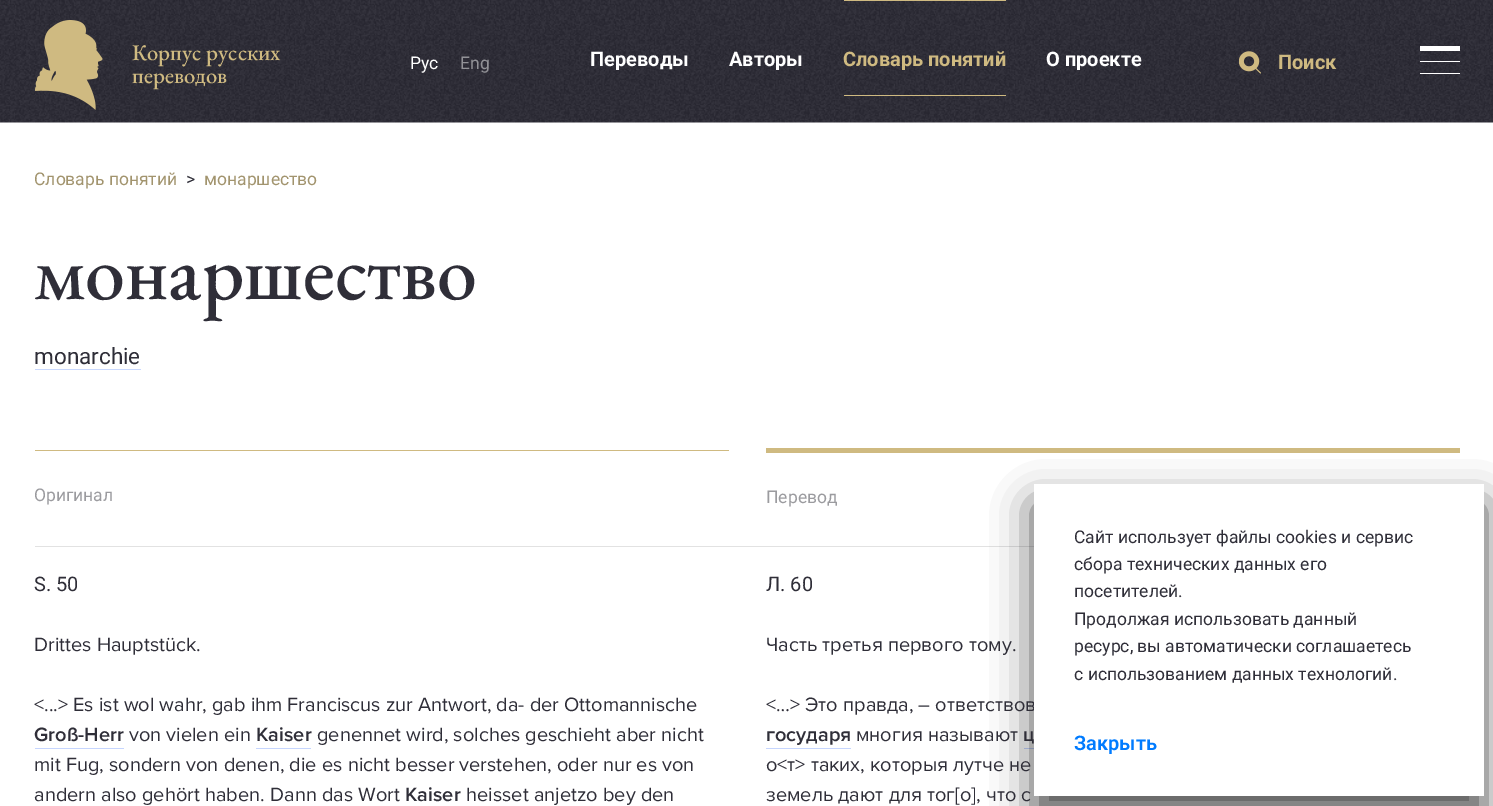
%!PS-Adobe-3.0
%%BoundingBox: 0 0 1493 806
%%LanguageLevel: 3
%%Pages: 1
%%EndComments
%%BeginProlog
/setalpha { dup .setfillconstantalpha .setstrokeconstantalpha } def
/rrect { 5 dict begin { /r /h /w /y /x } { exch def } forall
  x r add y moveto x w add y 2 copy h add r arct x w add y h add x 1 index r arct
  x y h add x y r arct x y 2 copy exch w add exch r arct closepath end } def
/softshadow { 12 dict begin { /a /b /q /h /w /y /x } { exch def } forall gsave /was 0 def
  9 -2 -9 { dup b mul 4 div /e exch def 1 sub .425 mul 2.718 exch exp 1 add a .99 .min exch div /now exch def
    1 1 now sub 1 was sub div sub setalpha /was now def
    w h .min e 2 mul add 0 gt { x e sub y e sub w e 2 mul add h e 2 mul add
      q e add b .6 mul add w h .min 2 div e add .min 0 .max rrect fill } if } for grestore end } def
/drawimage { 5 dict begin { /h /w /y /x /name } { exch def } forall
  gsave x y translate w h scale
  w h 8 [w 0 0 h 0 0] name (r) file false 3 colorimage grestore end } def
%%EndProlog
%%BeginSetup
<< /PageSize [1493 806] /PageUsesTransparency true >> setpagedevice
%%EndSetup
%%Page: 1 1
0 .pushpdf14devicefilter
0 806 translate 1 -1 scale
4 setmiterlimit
1 setgray
0 0 1493 806 rectfill
(images/1.raw) 0 0 1493 123 drawimage
(images/2.raw) 35 20 68 90 drawimage
0.812 0.729 0.506 setrgbcolor
844 0 162 1 rectfill
844 95 162 1 rectfill
(images/3.raw) 1239 51 22 23 drawimage
1 setgray
1420 46 40 5 rectfill
1420 61 40 1 rectfill
1420 73 40 1 rectfill
0.788 0.847 0.996 setrgbcolor
35 369 106 1 rectfill
0.812 0.729 0.506 setrgbcolor
35 450 694 1 rectfill
766 448 694 5 rectfill
0.886 setgray
35 546 999 1 rectfill
0.773 0.835 0.996 setrgbcolor
35 748 89 1 rectfill
256 748 55 1 rectfill
766 748 85 1 rectfill
1024 748 10 1 rectfill
0.051 0.051 0.059 setrgbcolor
1034 504 450 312 0 20 0.72 softshadow
/EBGaramond-Medium [22.5 0 0 -22.5 0 0] selectfont
0.812 0.729 0.506 setrgbcolor
132 60 moveto (Корпус русских) show
132 83 moveto (переводов) show
/Roboto-Regular [17.5 0 0 -17.5 0 0] selectfont
1 setgray
410 69 moveto (Рус) show
0.573 0.573 0.592 setrgbcolor
460 69 moveto (Eng) show
/Roboto-Bold [20 0 0 -20 0 0] selectfont
1 setgray
590 66 moveto (Переводы) show
729 66 moveto (Авторы) show
0.812 0.729 0.506 setrgbcolor
843 66 moveto (Словарь понятий) show
1 setgray
1046 66 moveto (О проекте) show
0.812 0.729 0.506 setrgbcolor
1278 69 moveto (Поиск) show
/Roboto-Regular [17.5 0 0 -17.5 0 0] selectfont
0.635 0.58 0.431 setrgbcolor
34 185 moveto (Словарь понятий) show
0.184 0.18 0.22 setrgbcolor
186 185 moveto (>) show
0.635 0.58 0.431 setrgbcolor
204 185 moveto (монаршество) show
/EBGaramond-Medium [80 0 0 -80 0 0] selectfont
0.184 0.18 0.22 setrgbcolor
34 299 moveto (монаршество) show
/Roboto-Regular [22.5 0 0 -22.5 0 0] selectfont
34 364 moveto (monarchie) show
/Roboto-Regular [17.5 0 0 -17.5 0 0] selectfont
0.608 0.608 0.624 setrgbcolor
34 501 moveto (Оригинал) show
766 503 moveto (Перевод) show
/Roboto-Regular [20 0 0 -20 0 0] selectfont
0.184 0.18 0.22 setrgbcolor
34 591 moveto (S. 50) show
/ProximaNova-Regular [20 0 0 -20 0 0] selectfont
34 651 moveto (Drittes Hauptstück.) show
34 711 moveto (<...> Es ist wol wahr, gab ihm Franciscus zur Antwort, da- der Ottomannische) show
/ProximaNova-SemiBold [20 0 0 -20 0 0] selectfont
34 741 moveto (Groß-Herr) show
/ProximaNova-Regular [20 0 0 -20 0 0] selectfont
129 741 moveto (von vielen ein) show
/ProximaNova-SemiBold [20 0 0 -20 0 0] selectfont
256 741 moveto (Kaiser) show
/ProximaNova-Regular [20 0 0 -20 0 0] selectfont
317 741 moveto (genennet wird, solches geschieht aber nicht) show
34 771 moveto (mit Fug, sondern von denen, die es nicht besser verstehen, oder nur es von) show
34 801 moveto (andern also gehört haben. Dann das Wort) show
/ProximaNova-SemiBold [20 0 0 -20 0 0] selectfont
405 801 moveto (Kaiser) show
/ProximaNova-Regular [20 0 0 -20 0 0] selectfont
466 801 moveto (heisset anjetzo bey den) show
/Roboto-Regular [20 0 0 -20 0 0] selectfont
766 591 moveto (Л. 60) show
/ProximaNova-Regular [20 0 0 -20 0 0] selectfont
766 651 moveto (Часть третья первого тому.) show
766 711 moveto (<…> Это правда, – ответствов) show
/ProximaNova-SemiBold [20 0 0 -20 0 0] selectfont
766 741 moveto (государя) show
/ProximaNova-Regular [20 0 0 -20 0 0] selectfont
856 741 moveto (многия называют) show
/ProximaNova-SemiBold [20 0 0 -20 0 0] selectfont
1023 741 moveto (ц) show
/ProximaNova-Regular [20 0 0 -20 0 0] selectfont
766 771 moveto (о<т> таких, которыя лутче не) show
766 801 moveto (земель дают для тог[о], что с) show
1 setgray
1034 484 450 312 rectfill
/Roboto-Regular [17.5 0 0 -17.5 0 0] selectfont
0.184 0.18 0.22 setrgbcolor
1074 543 moveto (Сайт использует файлы cookies и сервис) show
1074 570 moveto (сбора технических данных его) show
1074 597 moveto (посетителей.) show
1074 625 moveto (Продолжая использовать данный) show
1074 652 moveto (ресурс, вы автоматически соглашаетесь) show
1074 680 moveto (с использованием данных технологий.) show
/Roboto-SemiBold [20 0 0 -20 0 0] selectfont
0 0.482 1 setrgbcolor
1074 750 moveto (Закрыть) show
.poppdf14devicefilter showpage
%%EOF
